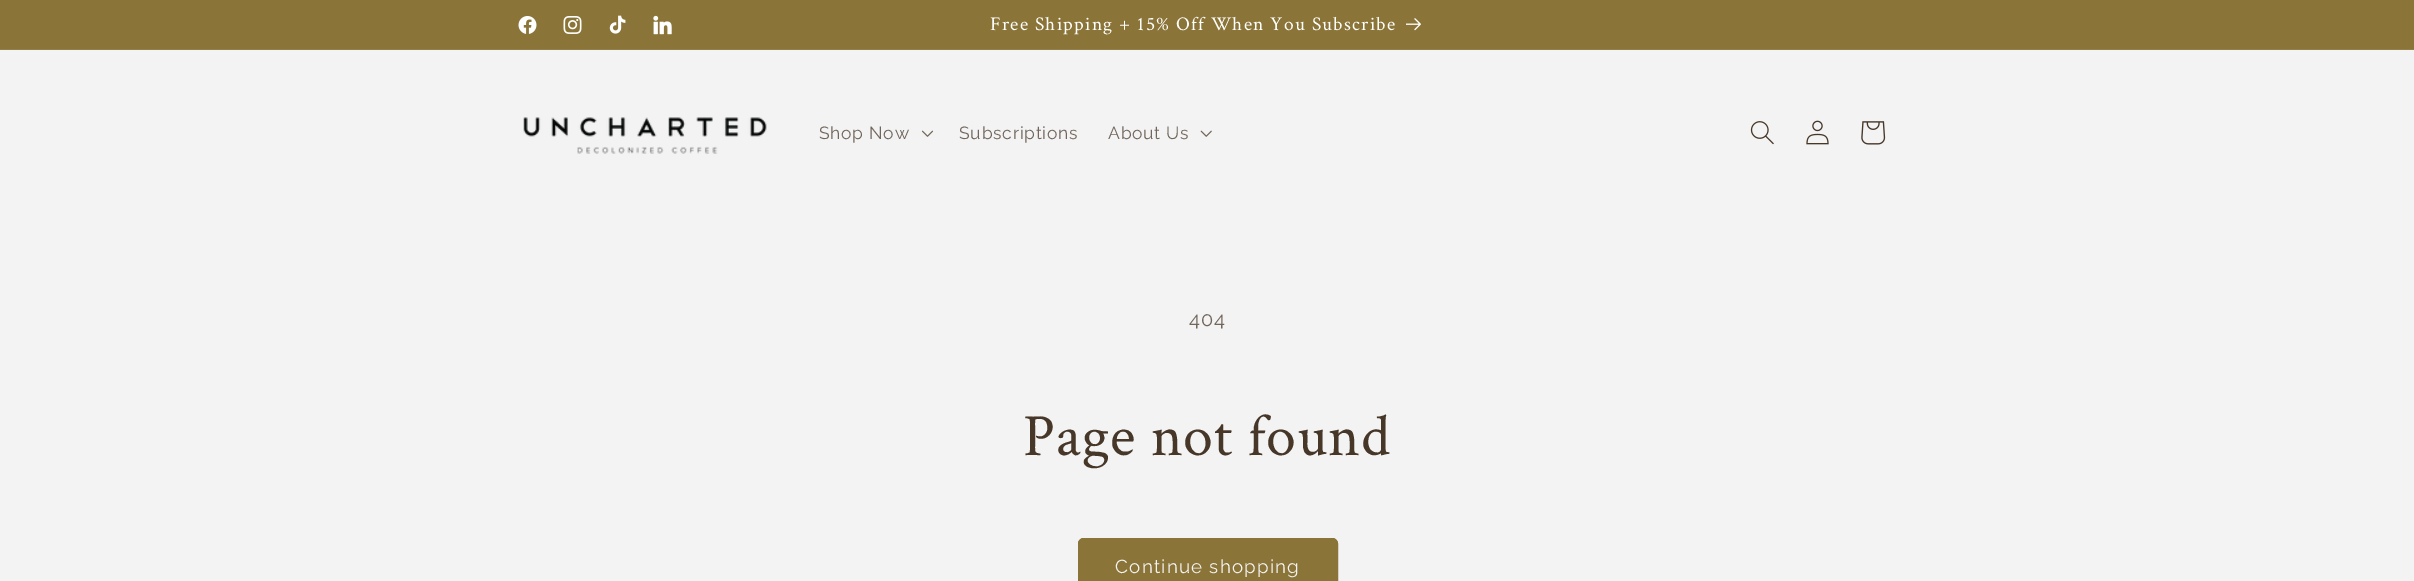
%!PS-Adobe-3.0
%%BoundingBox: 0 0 2414 581
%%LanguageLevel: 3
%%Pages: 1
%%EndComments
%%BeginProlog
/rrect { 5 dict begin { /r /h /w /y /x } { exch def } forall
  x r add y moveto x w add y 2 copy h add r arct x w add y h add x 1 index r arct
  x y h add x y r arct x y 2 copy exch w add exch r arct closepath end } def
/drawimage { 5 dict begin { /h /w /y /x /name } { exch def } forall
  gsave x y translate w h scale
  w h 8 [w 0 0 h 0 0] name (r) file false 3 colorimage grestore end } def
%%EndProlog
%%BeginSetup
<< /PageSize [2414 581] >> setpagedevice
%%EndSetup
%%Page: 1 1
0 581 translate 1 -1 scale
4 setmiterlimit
0.953 setgray
0 0 2414 581 rectfill
0.545 0.455 0.22 setrgbcolor
0 0 2414 49 rectfill
0.58 0.498 0.282 setrgbcolor
0 49 2414 1 rectfill
(images/1.raw) 518 16 19 18 drawimage
(images/2.raw) 563 16 19 18 drawimage
(images/3.raw) 609 15 17 19 drawimage
(images/4.raw) 653 15 19 20 drawimage
(images/5.raw) 1406 18 15 13 drawimage
(images/6.raw) 523 117 244 37 drawimage
(images/7.raw) 921 130 13 7 drawimage
(images/8.raw) 1200 130 12 7 drawimage
(images/9.raw) 1750 121 24 24 drawimage
(images/10.raw) 1806 120 23 25 drawimage
(images/11.raw) 1861 121 25 24 drawimage
0.545 0.455 0.22 setrgbcolor
1078 538 260 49 6 rrect fill
1078.5 538.5 259 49 5.5 rrect stroke
/CrimsonText-Regular [19.5 0 0 -19.5 0 0] selectfont
1 setgray
990 30 moveto 1.25 0 (Free Shipping + 15% Off When You Subscribe) ashow
/Raleway-Regular [17.5 0 0 -17.5 0 0] selectfont
0.447 0.4 0.361 setrgbcolor
819 139 moveto 0.75 0 (Shop Now) ashow
959 139 moveto 0.75 0 (Subscriptions) ashow
1108 139 moveto 0.75 0 (About Us) ashow
/Raleway-Regular [20 0 0 -20 0 0] selectfont
1189 326 moveto 0.75 0 (404) ashow
/CrimsonText-Regular [60 0 0 -60 0 0] selectfont
0.278 0.216 0.161 setrgbcolor
1023 455 moveto 0.9 0 (Page not found) ashow
/Raleway-Regular [18.75 0 0 -18.75 0 0] selectfont
0.953 setgray
1115 573 moveto 1.25 0 (Continue shopping) ashow
showpage
%%EOF
